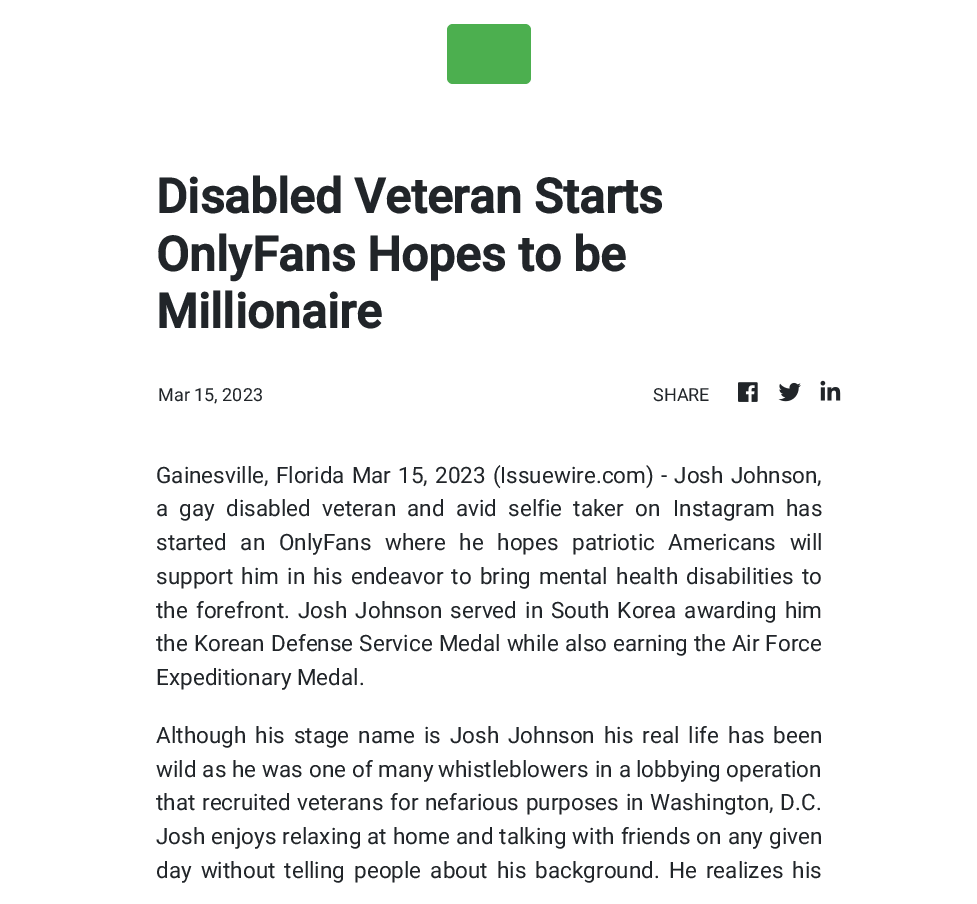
%!PS-Adobe-3.0
%%BoundingBox: 0 0 977 904
%%LanguageLevel: 3
%%Pages: 1
%%EndComments
%%BeginProlog
/rrect { 5 dict begin { /r /h /w /y /x } { exch def } forall
  x r add y moveto x w add y 2 copy h add r arct x w add y h add x 1 index r arct
  x y h add x y r arct x y 2 copy exch w add exch r arct closepath end } def
/drawimage { 5 dict begin { /h /w /y /x /name } { exch def } forall
  gsave x y translate w h scale
  w h 8 [w 0 0 h 0 0] name (r) file false 3 colorimage grestore end } def
%%EndProlog
%%BeginSetup
<< /PageSize [977 904] >> setpagedevice
%%EndSetup
%%Page: 1 1
0 904 translate 1 -1 scale
4 setmiterlimit
1 setgray
0 0 977 904 rectfill
0.298 0.686 0.31 setrgbcolor
447 24 84 60 6 rrect fill
(images/1.raw) 738 382 20 20 drawimage
(images/2.raw) 778 382 23 20 drawimage
(images/3.raw) 820 380 21 21 drawimage
/Roboto-Bold [48 0 0 -48 0 0] selectfont
0.129 0.145 0.161 setrgbcolor
156 213 moveto (Disabled Veteran Starts) show
156 271 moveto (OnlyFans Hopes to be) show
156 328 moveto (Millionaire) show
/Roboto-Regular [18 0 0 -18 0 0] selectfont
158 401 moveto (Mar 15, 2023) show
653 401 moveto (SHARE) show
/Roboto-Regular [22.5 0 0 -22.5 0 0] selectfont
156 483 moveto 1.5 0 32 (Gainesville, Florida Mar 15, 2023 \() widthshow
500 483 moveto (Issuewire.com) show
646 483 moveto 1.5 0 32 (\) - Josh Johnson,) widthshow
156 516 moveto 5.5 0 32 (a gay disabled veteran and avid selfie taker on) widthshow
673 516 moveto (Instagram) show
786 516 moveto (has) show
156 550 moveto 8 0 32 (started an OnlyFans where he hopes patriotic Americans will) widthshow
156 584 moveto 2.6 0 32 (support him in his endeavor to bring mental health disabilities to) widthshow
156 618 moveto 2.5 0 32 (the forefront. Josh Johnson served in South Korea awarding him) widthshow
156 651 moveto 0.5 0 32 (the Korean Defense Service Medal while also earning the Air Force) widthshow
156 685 moveto (Expeditionary Medal.) show
156 743 moveto 3.4 0 32 (Although his stage name is Josh Johnson his real life has been) widthshow
156 777 moveto 0.25 0 32 (wild as he was one of many) widthshow
438 777 moveto (whistleblowers) show
595 777 moveto 0.25 0 32 (in a) widthshow
636 777 moveto (lobbying operation) show
156 810 moveto 1 0 32 (that recruited veterans for nefarious purposes in Washington, D.C.) widthshow
156 844 moveto 0.5 0 32 (Josh enjoys relaxing at home and talking with friends on any given) widthshow
156 878 moveto 3.4 0 32 (day without telling people about his background. He realizes his) widthshow
showpage
%%EOF
